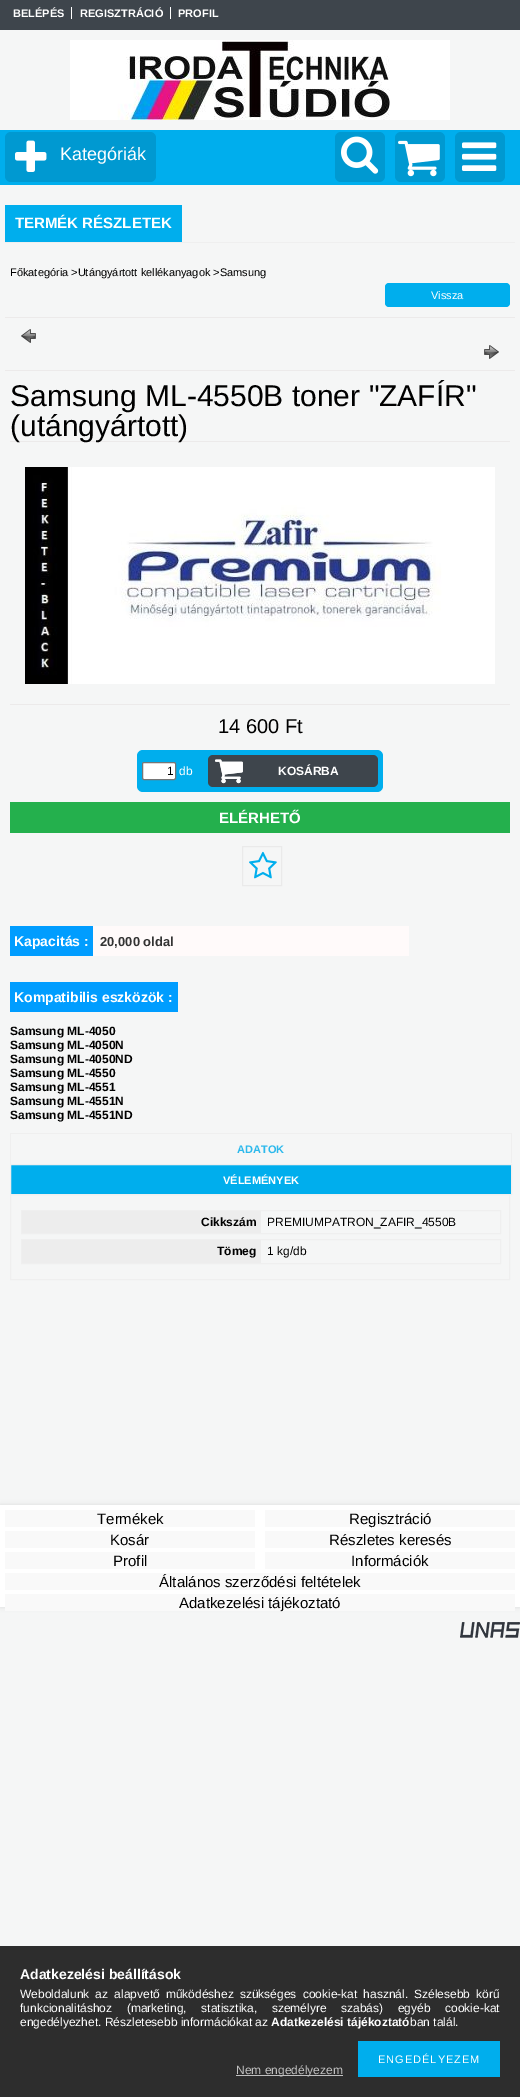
%!PS-Adobe-3.0
%%BoundingBox: 0 0 520 2097
%%LanguageLevel: 3
%%Pages: 1
%%EndComments
%%BeginProlog
/setalpha { dup .setfillconstantalpha .setstrokeconstantalpha } def
/rrect { 5 dict begin { /r /h /w /y /x } { exch def } forall
  x r add y moveto x w add y 2 copy h add r arct x w add y h add x 1 index r arct
  x y h add x y r arct x y 2 copy exch w add exch r arct closepath end } def
/softshadow { 12 dict begin { /a /b /q /h /w /y /x } { exch def } forall gsave /was 0 def
  9 -2 -9 { dup b mul 4 div /e exch def 1 sub .425 mul 2.718 exch exp 1 add a .99 .min exch div /now exch def
    1 1 now sub 1 was sub div sub setalpha /was now def
    w h .min e 2 mul add 0 gt { x e sub y e sub w e 2 mul add h e 2 mul add
      q e add b .6 mul add w h .min 2 div e add .min 0 .max rrect fill } if } for grestore end } def
/drawimage { 5 dict begin { /h /w /y /x /name } { exch def } forall
  gsave x y translate w h scale
  w h 8 [w 0 0 h 0 0] name (r) file false 3 colorimage grestore end } def
%%EndProlog
%%BeginSetup
<< /PageSize [520 2097] /PageUsesTransparency true >> setpagedevice
%%EndSetup
%%Page: 1 1
0 .pushpdf14devicefilter
0 2097 translate 1 -1 scale
4 setmiterlimit
0.961 0.965 0.965 setrgbcolor
0 0 520 2097 rectfill
0.243 0.271 0.298 setrgbcolor
0 0 520 30 rectfill
1 setgray
71 7 1 12 rectfill
170 7 1 12 rectfill
(images/1.raw) 70 40 380 80 drawimage
0 0.682 0.929 setrgbcolor
0 130 520 55 rectfill
0 0.6 0.82 setrgbcolor
5 132 151 50 6 rrect fill
(images/2.raw) 15 140 32 32 drawimage
335 132 50 50 6 rrect fill
(images/3.raw) 341 136 38 38 drawimage
395 132 50 50 6 rrect fill
(images/4.raw) 398 140 42 37 drawimage
455 132 50 50 6 rrect fill
(images/5.raw) 462 142 35 29 drawimage
0.937 setgray
5 242 510 1 rectfill
0 0.682 0.929 setrgbcolor
5 205 177 37 rectfill
385 283 125 24 4 rrect fill
0.925 0.918 0.918 setrgbcolor
5 317 510 1 rectfill
(images/6.raw) 21 329 15 14 drawimage
(images/7.raw) 484 345 15 14 drawimage
5 370 510 1 rectfill
10 441 500 1 rectfill
10 704 500 1 rectfill
(images/8.raw) 25 467 470 217 drawimage
0 0.682 0.929 setrgbcolor
137 750 246 42 6 rrect fill
1 setgray
142.5 762.5 33 17 1.5 rrect gsave fill grestore
0.463 setgray
stroke
0.243 0.271 0.298 setrgbcolor
208 755 170 32 5 rrect fill
(images/9.raw) 215 759 28 25 drawimage
(images/10.raw) 215 759 28 25 drawimage
0.141 0.69 0.302 setrgbcolor
10 802 500 31 rectfill
0.918 setgray
242.5 846.5 39 39 rectstroke
(images/11.raw) 249 851 28 28 drawimage
1 0.98 0.98 setrgbcolor
93 926 316 30 rectfill
0 0.616 1 setrgbcolor
10 926 83 30 rectfill
10 982 168 30 rectfill
0.937 setgray
10 1133 502 1 rectfill
511 1133 1 31 rectfill
0.961 setgray
511 1163 1 1 rectfill
0.937 setgray
10 1133 1 31 rectfill
10.5 1194.5 499 85 rectstroke
0 0.682 0.929 setrgbcolor
newpath 10.5 1164.5 moveto 511.5 1164.5 lineto 511.5 1194.5 lineto 10.5 1194.5 lineto closepath gsave fill grestore
0.937 setgray
stroke
21.5 1210.5 479 23 rectstroke
0.929 setgray
22 1211 239 22 rectfill
0.937 setgray
21.5 1239.5 479 24 rectstroke
0.929 setgray
22 1240 239 23 rectfill
0 setgray
0 1505 520 102 0 2.5 0.1 softshadow
1 setgray
0 1505 520 102 rectfill
0.976 setgray
5 1510 250 17 rectfill
265 1510 250 17 rectfill
5 1531 250 17 rectfill
265 1531 250 17 rectfill
5 1552 250 17 rectfill
265 1552 250 17 rectfill
5 1573 510 17 rectfill
5 1594 510 17 rectfill
(images/12.raw) 460 1622 60 16 drawimage
0.176 setgray
0 1946 520 151 rectfill
0 0.682 0.929 setrgbcolor
358 2041 142 36 rectfill
0.753 setgray
236 2075 107 1 rectfill
/LiberationSans-Bold [11 0 0 -11 0 0] selectfont
1 setgray
13 17 moveto (BELÉPÉS) show
80 17 moveto (REGISZTRÁCIÓ) show
178 17 moveto (PROFIL) show
/LiberationSans-Regular [18 0 0 -18 0 0] selectfont
60 160 moveto (Kategóriák) show
/LiberationSans-Bold [15 0 0 -15 0 0] selectfont
15 228 moveto (TERMÉK RÉSZLETEK) show
/LiberationSans-Regular [11 0 0 -11 0 0] selectfont
0 setgray
10 276 moveto (Főkategória >Utángyártott kellékanyagok >Samsung) show
1 setgray
431 299 moveto (Vissza) show
/LiberationSans-Regular [30 0 0 -30 0 0] selectfont
0 setgray
10 406 moveto (Samsung ML-4550B toner "ZAFÍR") show
10 436 moveto (\(utángyártott\)) show
/LiberationSans-Regular [20 0 0 -20 0 0] selectfont
218 733 moveto (14 600 Ft) show
/LiberationSans-Regular [12 0 0 -12 0 0] selectfont
167 775 moveto (1) show
1 setgray
179 775 moveto (db) show
/LiberationSans-Bold [12 0 0 -12 0 0] selectfont
278 775 moveto (KOSÁRBA) show
/LiberationSans-Bold [15 0 0 -15 0 0] selectfont
219 823 moveto (ELÉRHETŐ) show
/LiberationSans-Bold [14 0 0 -14 0 0] selectfont
14 946 moveto (Kapacitás :) show
/LiberationSans-Bold [13 0 0 -13 0 0] selectfont
0.2 setgray
100 946 moveto (20,000 oldal) show
/LiberationSans-Bold [14 0 0 -14 0 0] selectfont
1 setgray
14 1002 moveto (Kompatibilis eszközök :) show
/LiberationSans-Bold [12 0 0 -12 0 0] selectfont
0 setgray
10 1035 moveto (Samsung ML-4050) show
10 1049 moveto (Samsung ML-4050N) show
10 1063 moveto (Samsung ML-4050ND) show
10 1077 moveto (Samsung ML-4550) show
10 1091 moveto (Samsung ML-4551) show
10 1105 moveto (Samsung ML-4551N) show
10 1119 moveto (Samsung ML-4551ND) show
/LiberationSans-Bold [11 0 0 -11 0 0] selectfont
0.176 0.725 0.925 setrgbcolor
237 1153 moveto (ADATOK) show
1 setgray
223 1184 moveto (VÉLEMÉNYEK) show
/LiberationSans-Bold [12 0 0 -12 0 0] selectfont
0 setgray
201 1226 moveto (Cikkszám) show
/LiberationSans-Regular [12 0 0 -12 0 0] selectfont
267 1226 moveto (PREMIUMPATRON_ZAFIR_4550B) show
/LiberationSans-Bold [12 0 0 -12 0 0] selectfont
217 1255 moveto (Tömeg) show
/LiberationSans-Regular [12 0 0 -12 0 0] selectfont
267 1255 moveto (1 kg/db) show
/LiberationSans-Regular [15 0 0 -15 0 0] selectfont
97 1524 moveto (Termékek) show
349 1524 moveto (Regisztráció) show
110 1545 moveto (Kosár) show
329 1545 moveto (Részletes keresés) show
113 1566 moveto (Profil) show
351 1566 moveto (Információk) show
159 1587 moveto (Általános szerződési feltételek) show
179 1608 moveto (Adatkezelési tájékoztató) show
/LiberationSans-Bold [14 0 0 -14 0 0] selectfont
1 setgray
20 1979 moveto (Adatkezelési beállítások) show
/LiberationSans-Regular [12 0 0 -12 0 0] selectfont
20 1998 moveto 2.75 0 32 (Weboldalunk az alapvető működéshez szükséges cookie-kat használ. Szélesebb körű) widthshow
20 2012 moveto 11.25 0 32 (funkcionalitáshoz \(marketing, statisztika, személyre szabás\) egyéb cookie-kat) widthshow
20 2026 moveto (engedélyezhet. Részletesebb információkat az) show
/LiberationSans-Bold [12 0 0 -12 0 0] selectfont
271 2026 moveto (Adatkezelési tájékoztató) show
/LiberationSans-Regular [12 0 0 -12 0 0] selectfont
410 2026 moveto (ban talál.) show
/LiberationSans-Regular [11 0 0 -11 0 0] selectfont
378 2063 moveto 1 0 (ENGEDÉLYEZEM) ashow
/LiberationSans-Regular [12 0 0 -12 0 0] selectfont
0.753 setgray
236 2074 moveto (Nem engedélyezem) show
.poppdf14devicefilter showpage
%%EOF
